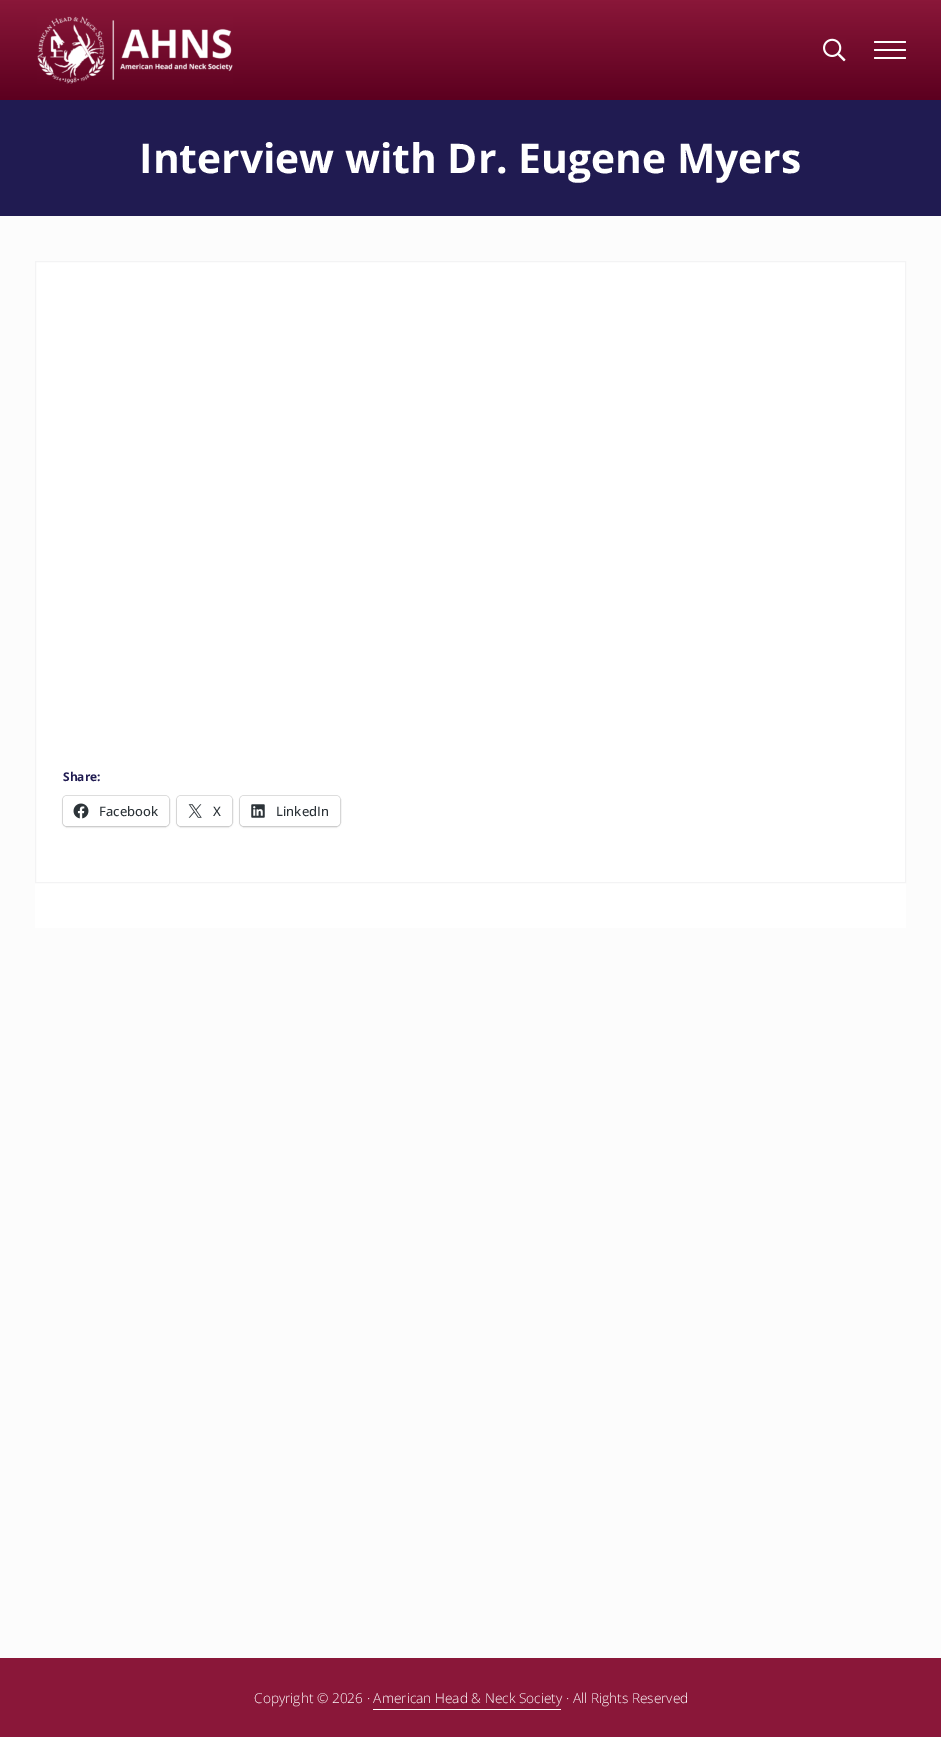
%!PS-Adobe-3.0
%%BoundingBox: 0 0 941 1737
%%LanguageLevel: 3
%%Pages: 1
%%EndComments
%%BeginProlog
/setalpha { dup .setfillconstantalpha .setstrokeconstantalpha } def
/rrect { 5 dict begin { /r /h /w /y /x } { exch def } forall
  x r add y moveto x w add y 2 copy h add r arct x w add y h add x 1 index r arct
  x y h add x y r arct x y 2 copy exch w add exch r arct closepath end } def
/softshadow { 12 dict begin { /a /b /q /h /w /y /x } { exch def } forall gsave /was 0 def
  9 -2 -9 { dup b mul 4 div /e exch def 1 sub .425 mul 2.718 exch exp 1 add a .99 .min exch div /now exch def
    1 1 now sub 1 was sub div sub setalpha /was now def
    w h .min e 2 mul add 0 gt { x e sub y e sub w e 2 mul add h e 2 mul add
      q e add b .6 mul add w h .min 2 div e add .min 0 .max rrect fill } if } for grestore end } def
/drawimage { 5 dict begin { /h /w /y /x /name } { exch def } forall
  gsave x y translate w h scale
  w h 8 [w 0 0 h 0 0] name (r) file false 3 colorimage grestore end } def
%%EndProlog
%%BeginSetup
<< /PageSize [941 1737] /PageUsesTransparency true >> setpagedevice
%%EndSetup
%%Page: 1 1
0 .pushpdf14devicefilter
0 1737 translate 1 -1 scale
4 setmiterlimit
0.988 setgray
0 0 941 1737 rectfill
gsave newpath 0 0 moveto 941 0 lineto 941 100 lineto 0 100 lineto closepath clip newpath
<< /ShadingType 2 /ColorSpace /DeviceRGB /Coords [471 100 471 0] /Extend [true true] /Function << /FunctionType 2 /Domain [0 1] /C0 [0.361 0 0.122] /C1 [0.541 0.09 0.224] /N 1 >> >> shfill grestore
(images/1.raw) 37 16 196 68 drawimage
(images/2.raw) 823 38 23 24 drawimage
1 setgray
874 49 32 2 1 rrect fill
874 41 32 2 1 rrect fill
874 57 32 2 1 rrect fill
0.125 0.106 0.318 setrgbcolor
0 100 941 116 rectfill
1 setgray
35 262 871 666 rectfill
0.953 0.953 0.957 setrgbcolor
35.5 261.5 870 621 rectstroke
0.878 setgray
62.5 795.5 107 31 4.5 rrect stroke
0 setgray
63 797 106 30 4 1 0.12 softshadow
1 setgray
63 796 106 30 4 rrect fill
(images/3.raw) 73 803 16 16 drawimage
0.878 setgray
176.5 795.5 56 31 4.5 rrect stroke
0 setgray
177 797 55 30 4 1 0.12 softshadow
1 setgray
177 796 55 30 4 rrect fill
(images/4.raw) 188 804 14 14 drawimage
0.878 setgray
239.5 795.5 101 31 4.5 rrect stroke
0 setgray
240 797 100 30 4 1 0.12 softshadow
1 setgray
240 796 100 30 4 rrect fill
(images/5.raw) 251 804 14 14 drawimage
0.541 0.09 0.224 setrgbcolor
0 1658 941 79 rectfill
1 setgray
373 1709 188 1 rectfill
/OpenSans-Bold [40.8 0 0 -40.8 0 0] selectfont
139 173 moveto (Interview with Dr. Eugene Myers) show
/OpenSans-Bold [12 0 0 -12 0 0] selectfont
0.125 0.106 0.318 setrgbcolor
63 781 moveto (Share:) show
/OpenSans-Medium [13 0 0 -13 0 0] selectfont
0.173 0.2 0.22 setrgbcolor
99 816 moveto (Facebook) show
213 816 moveto (X) show
276 816 moveto (LinkedIn) show
/OpenSans-Light [13.7 0 0 -13.7 0 0] selectfont
1 setgray
254 1703 moveto (Copyright © 2026 · American Head & Neck Society · All Rights Reserved) show
.poppdf14devicefilter showpage
%%EOF
